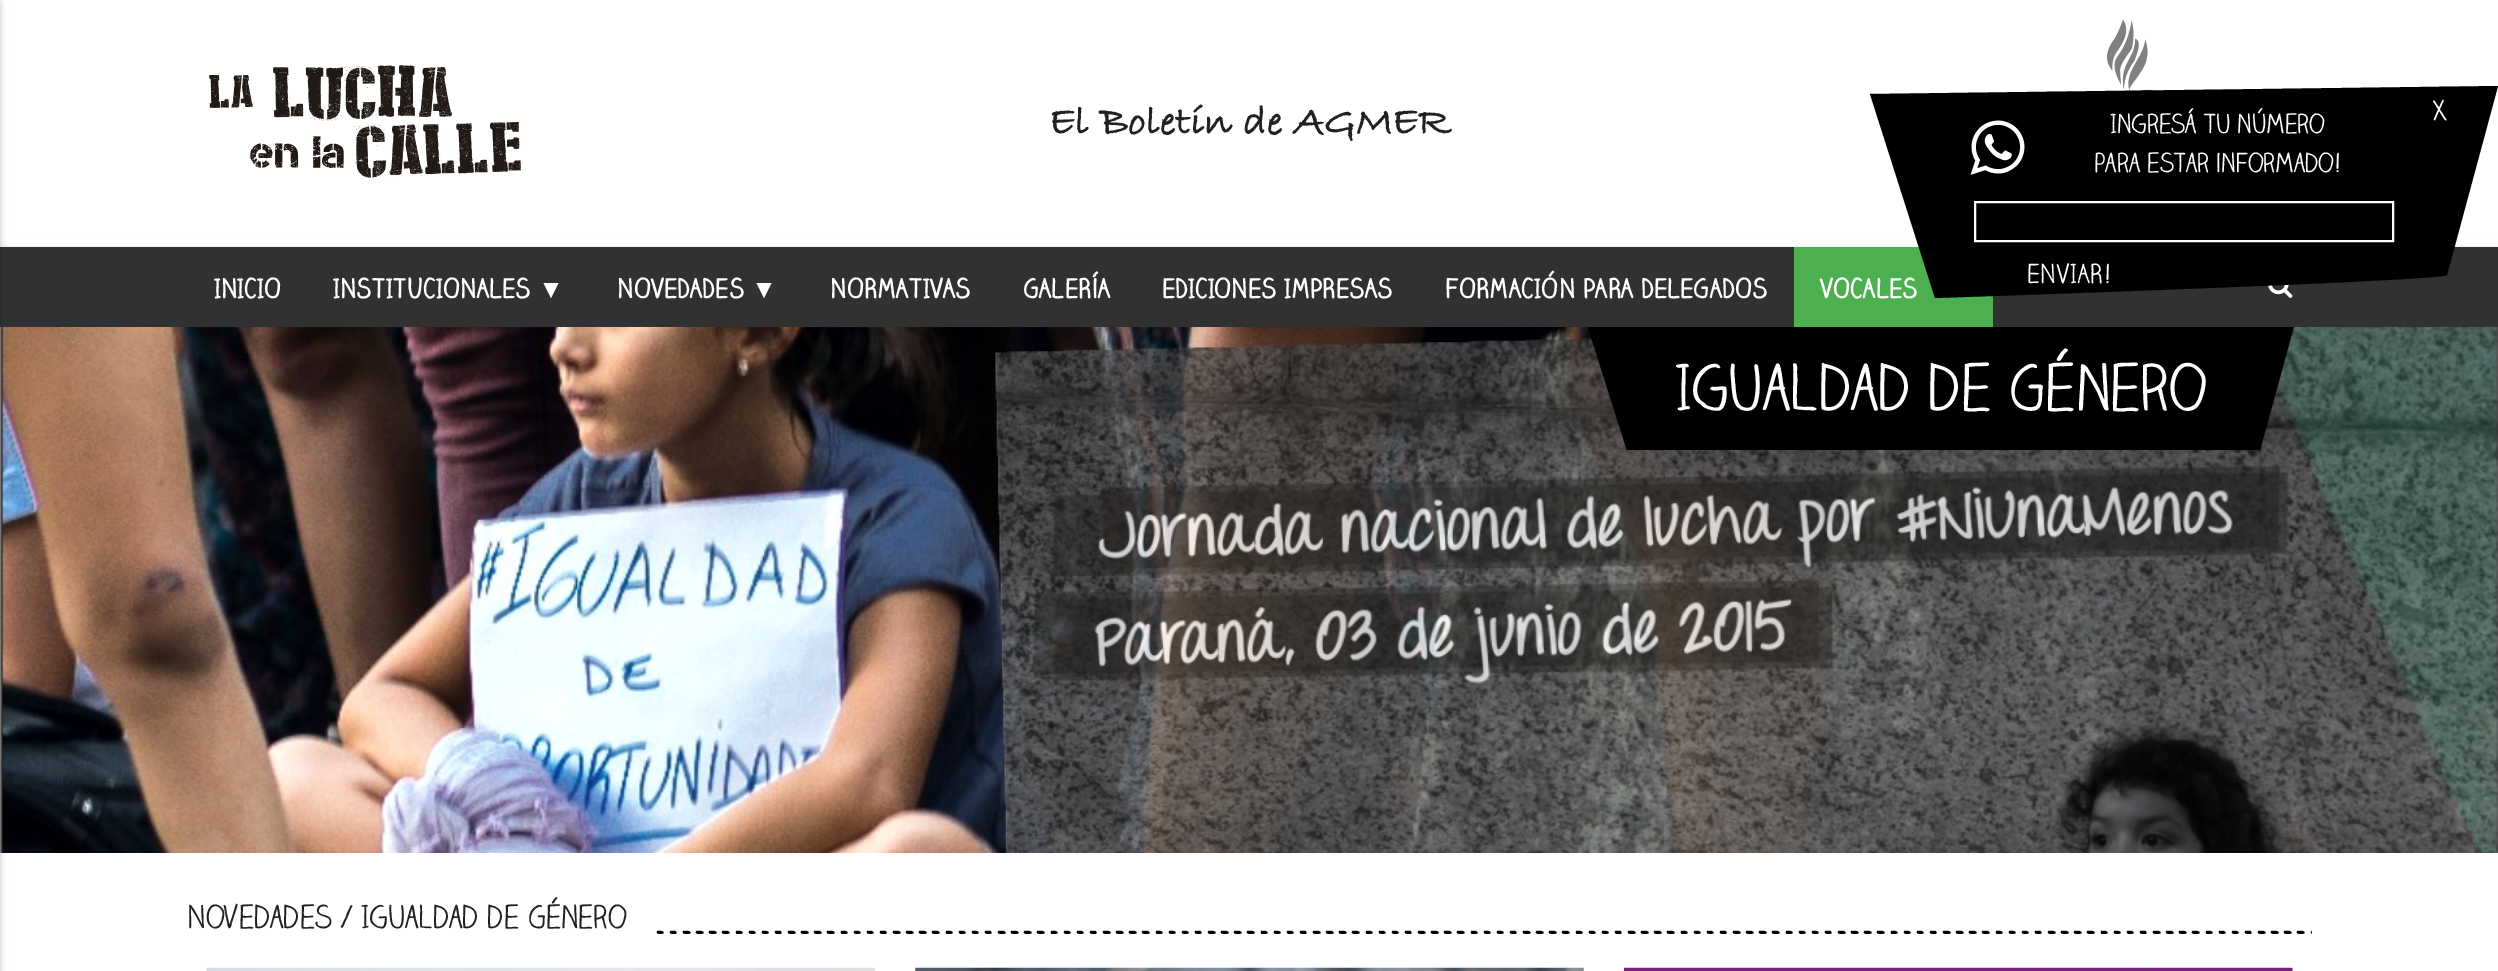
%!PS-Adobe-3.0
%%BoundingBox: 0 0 2498 971
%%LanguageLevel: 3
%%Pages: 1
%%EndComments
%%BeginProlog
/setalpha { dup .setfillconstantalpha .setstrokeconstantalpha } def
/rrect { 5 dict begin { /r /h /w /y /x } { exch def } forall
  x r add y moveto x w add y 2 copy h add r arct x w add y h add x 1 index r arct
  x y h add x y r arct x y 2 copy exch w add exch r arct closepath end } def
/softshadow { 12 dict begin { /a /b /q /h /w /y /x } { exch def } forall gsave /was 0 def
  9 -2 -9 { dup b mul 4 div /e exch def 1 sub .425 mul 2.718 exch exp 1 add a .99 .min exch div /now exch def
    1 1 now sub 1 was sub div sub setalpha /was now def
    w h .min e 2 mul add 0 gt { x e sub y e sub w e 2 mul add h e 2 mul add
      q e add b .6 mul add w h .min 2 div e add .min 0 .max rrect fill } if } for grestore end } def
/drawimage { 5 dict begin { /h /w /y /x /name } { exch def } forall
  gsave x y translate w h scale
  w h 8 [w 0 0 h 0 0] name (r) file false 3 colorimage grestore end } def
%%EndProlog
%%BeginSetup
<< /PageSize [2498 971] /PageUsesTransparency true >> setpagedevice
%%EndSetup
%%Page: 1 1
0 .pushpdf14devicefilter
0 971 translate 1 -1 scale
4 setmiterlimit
1 setgray
0 0 2498 971 rectfill
(images/1.raw) 2098 19 66 73 drawimage
(images/2.raw) 208 65 313 114 drawimage
0 setgray
0 249 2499 80 0 4.5 0.12 softshadow
0.192 setgray
0 247 2498 80 rectfill
(images/5.raw) 0 327 2498 526 drawimage
0 setgray
-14 2 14 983 0 4.5 0.12 softshadow
-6 4 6 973 0 2 0.14 softshadow
0.298 0.686 0.314 setrgbcolor
1794 247 199 80 rectfill
(images/4.raw) 2268 284 25 14 drawimage
gsave
1570 327 742 123 rectclip
0 setgray
newpath 1571 274 moveto 1647 514 lineto 1647 514 2248 494 2250 487 curveto 2311 264 lineto closepath fill
grestore
(images/6.raw) 656 930 1656 4 drawimage
(images/7.raw) 206 967 669 4 drawimage
(images/8.raw) 915 967 669 4 drawimage
(images/9.raw) 1624 967 669 4 drawimage
/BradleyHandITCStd-Bold [42 0 0 -42 0 0] selectfont
0.129 setgray
1049 133 moveto (El Boletín de AGMER) show
/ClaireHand-Bold [26.25 0 0 -26.25 0 0] selectfont
1 setgray
214 298 moveto (INICIO) show
333 298 moveto (INSTITUCIONALES) show
/LiberationSerif-Regular [26.25 0 0 -26.25 0 0] selectfont
538 298 moveto (▼) show
/ClaireHand-Bold [26.25 0 0 -26.25 0 0] selectfont
617 298 moveto (NOVEDADES) show
/LiberationSerif-Regular [26.25 0 0 -26.25 0 0] selectfont
751 298 moveto (▼) show
/ClaireHand-Bold [26.25 0 0 -26.25 0 0] selectfont
830 298 moveto (NORMATIVAS) show
1023 298 moveto (GALERÍA) show
1162 298 moveto (EDICIONES IMPRESAS) show
1445 298 moveto (FORMACIÓN PARA DELEGADOS) show
1820 298 moveto (VOCALES) show
0 setgray
newpath 1870 94 moveto 1935 298 lineto 1935 298 2445 281 2447 275 curveto 2498 86 lineto closepath fill
/ClaireHand-Regular [26.25 0 0 -26.25 0 0] selectfont
1 setgray
2027 283 moveto 1 0 (ENVIAR!) ashow
2 setlinewidth
1975 202 418 39 rectstroke
2094 172 moveto (para estar informado!) show
2110 133 moveto (Ingresá tu número) show
(images/3.raw) 1970 120 55 55 drawimage
2433 120 moveto (X) show
/ClaireHand-Regular [63 0 0 -63 0 0] selectfont
1675 410 moveto (Igualdad de Género) show
/ClaireHand-Regular [31.5 0 0 -31.5 0 0] selectfont
0.129 setgray
187 928 moveto (Novedades / Igualdad de Género) show
.poppdf14devicefilter showpage
%%EOF
